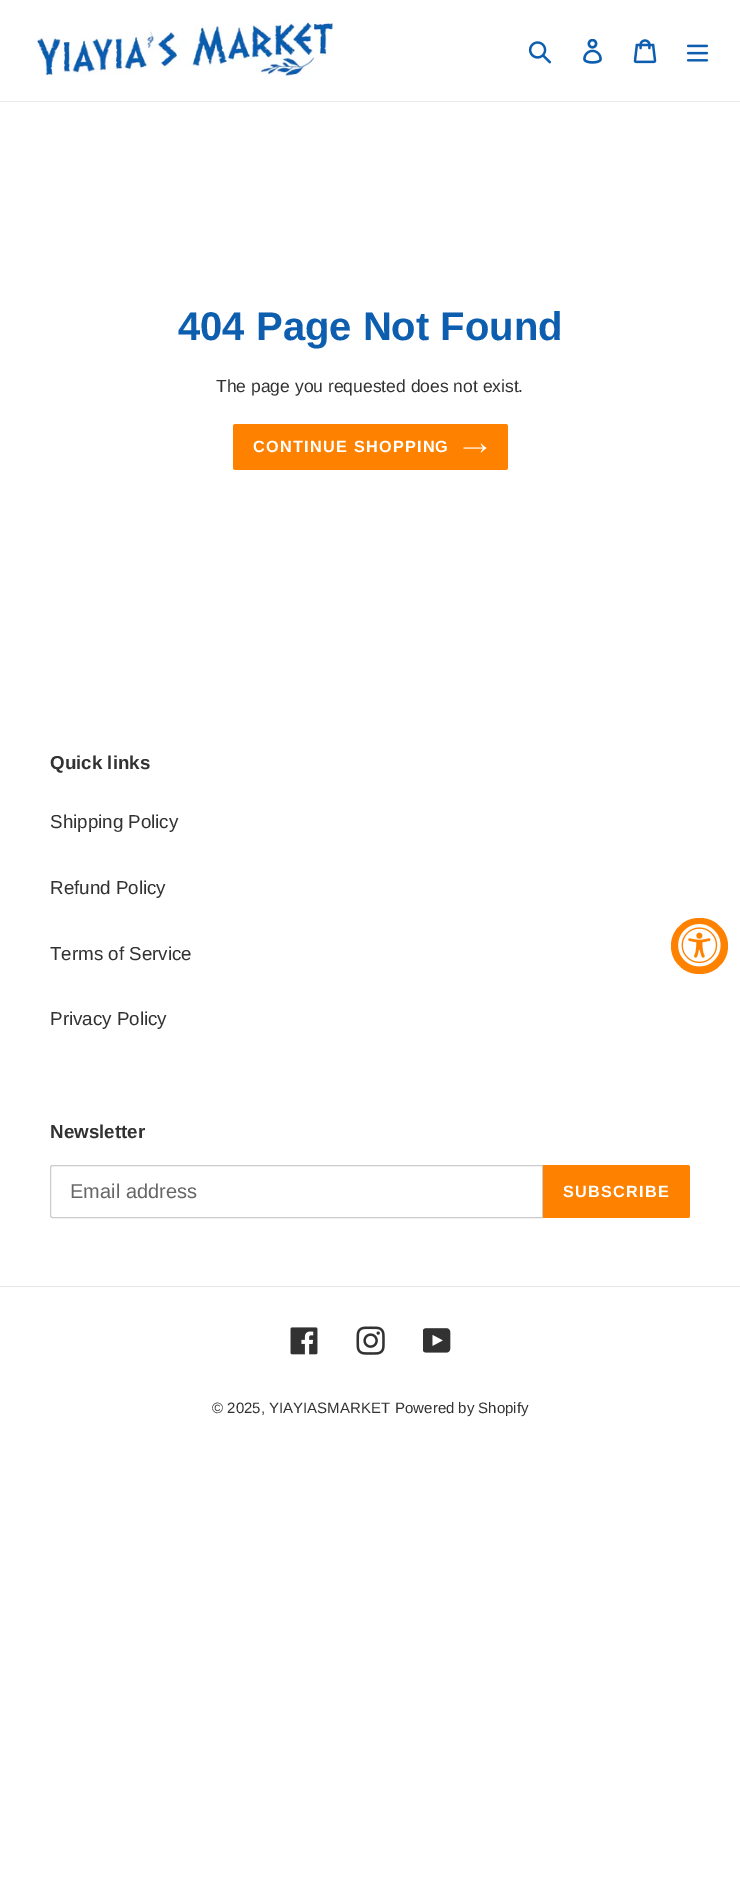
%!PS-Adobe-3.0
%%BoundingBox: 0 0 740 1889
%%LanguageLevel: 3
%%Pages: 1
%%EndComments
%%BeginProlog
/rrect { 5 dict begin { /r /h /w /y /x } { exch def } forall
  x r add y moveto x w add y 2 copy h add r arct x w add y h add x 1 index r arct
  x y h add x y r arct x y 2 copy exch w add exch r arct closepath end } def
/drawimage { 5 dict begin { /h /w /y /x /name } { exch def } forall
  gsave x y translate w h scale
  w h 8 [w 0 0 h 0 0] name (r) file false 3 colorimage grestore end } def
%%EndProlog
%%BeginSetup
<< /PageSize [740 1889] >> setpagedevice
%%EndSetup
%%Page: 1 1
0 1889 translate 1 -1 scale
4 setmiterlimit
1 setgray
0 0 740 1889 rectfill
0.922 setgray
0 101 740 1 rectfill
(images/1.raw) 34 19 300 62 drawimage
(images/2.raw) 528 41 23 23 drawimage
(images/3.raw) 583 39 19 25 drawimage
(images/4.raw) 633 39 24 25 drawimage
(images/5.raw) 686 44 23 18 drawimage
1 0.506 0 setrgbcolor
233 424 275 46 2.5 rrect fill
(images/6.raw) 463 443 24 10 drawimage
0.8 setgray
newpath 52.5 1165.5 moveto 542.5 1165.5 lineto 542.5 1217.5 lineto 52.5 1217.5 lineto 51.5 1217.5 50.5 1216.5 50.5 1215.5 curveto 50.5 1167.5 lineto 50.5 1166.5 51.5 1165.5 52.5 1165.5 curveto closepath stroke
1 0.506 0 setrgbcolor
newpath 543 1165 moveto 687.5 1165 lineto 689 1165 690 1166 690 1167.5 curveto 690 1215.5 lineto 690 1217 689 1218 687.5 1218 curveto 543 1218 lineto closepath fill
0.902 setgray
0 1286 740 1 rectfill
(images/7.raw) 290 1327 28 28 drawimage
(images/8.raw) 356 1326 29 29 drawimage
(images/9.raw) 423 1328 28 25 drawimage
1 0.506 0 setrgbcolor
671 918 57 56 28 rrect fill
(images/10.raw) 678 924 43 43 drawimage
/LiberationSans-Bold [40 0 0 -40 0 0] selectfont
0.051 0.369 0.686 setrgbcolor
178 340 moveto (404 Page Not Found) show
/LiberationSans-Regular [17.5 0 0 -17.5 0 0] selectfont
0.2 0.196 0.196 setrgbcolor
216 392 moveto (The page you requested does not exist.) show
/LiberationSans-Bold [16.25 0 0 -16.25 0 0] selectfont
1 setgray
253 452 moveto 1.25 0 (CONTINUE SHOPPING) ashow
/LiberationSans-Bold [18.75 0 0 -18.75 0 0] selectfont
0.2 0.196 0.196 setrgbcolor
50 769 moveto (Quick links) show
/LiberationSans-Regular [18.75 0 0 -18.75 0 0] selectfont
50 828 moveto (Shipping Policy) show
50 894 moveto (Refund Policy) show
50 960 moveto (Terms of Service) show
50 1025 moveto (Privacy Policy) show
/LiberationSans-Bold [18.75 0 0 -18.75 0 0] selectfont
50 1138 moveto (Newsletter) show
/LiberationSans-Regular [20 0 0 -20 0 0] selectfont
0.4 setgray
70 1198 moveto (Email address) show
/LiberationSans-Bold [16.25 0 0 -16.25 0 0] selectfont
1 setgray
563 1197 moveto 1.25 0 (SUBSCRIBE) ashow
/LiberationSans-Regular [15 0 0 -15 0 0] selectfont
0.2 0.196 0.196 setrgbcolor
212 1413 moveto (© 2025, YIAYIASMARKET) show
395 1413 moveto (Powered by Shopify) show
showpage
%%EOF
